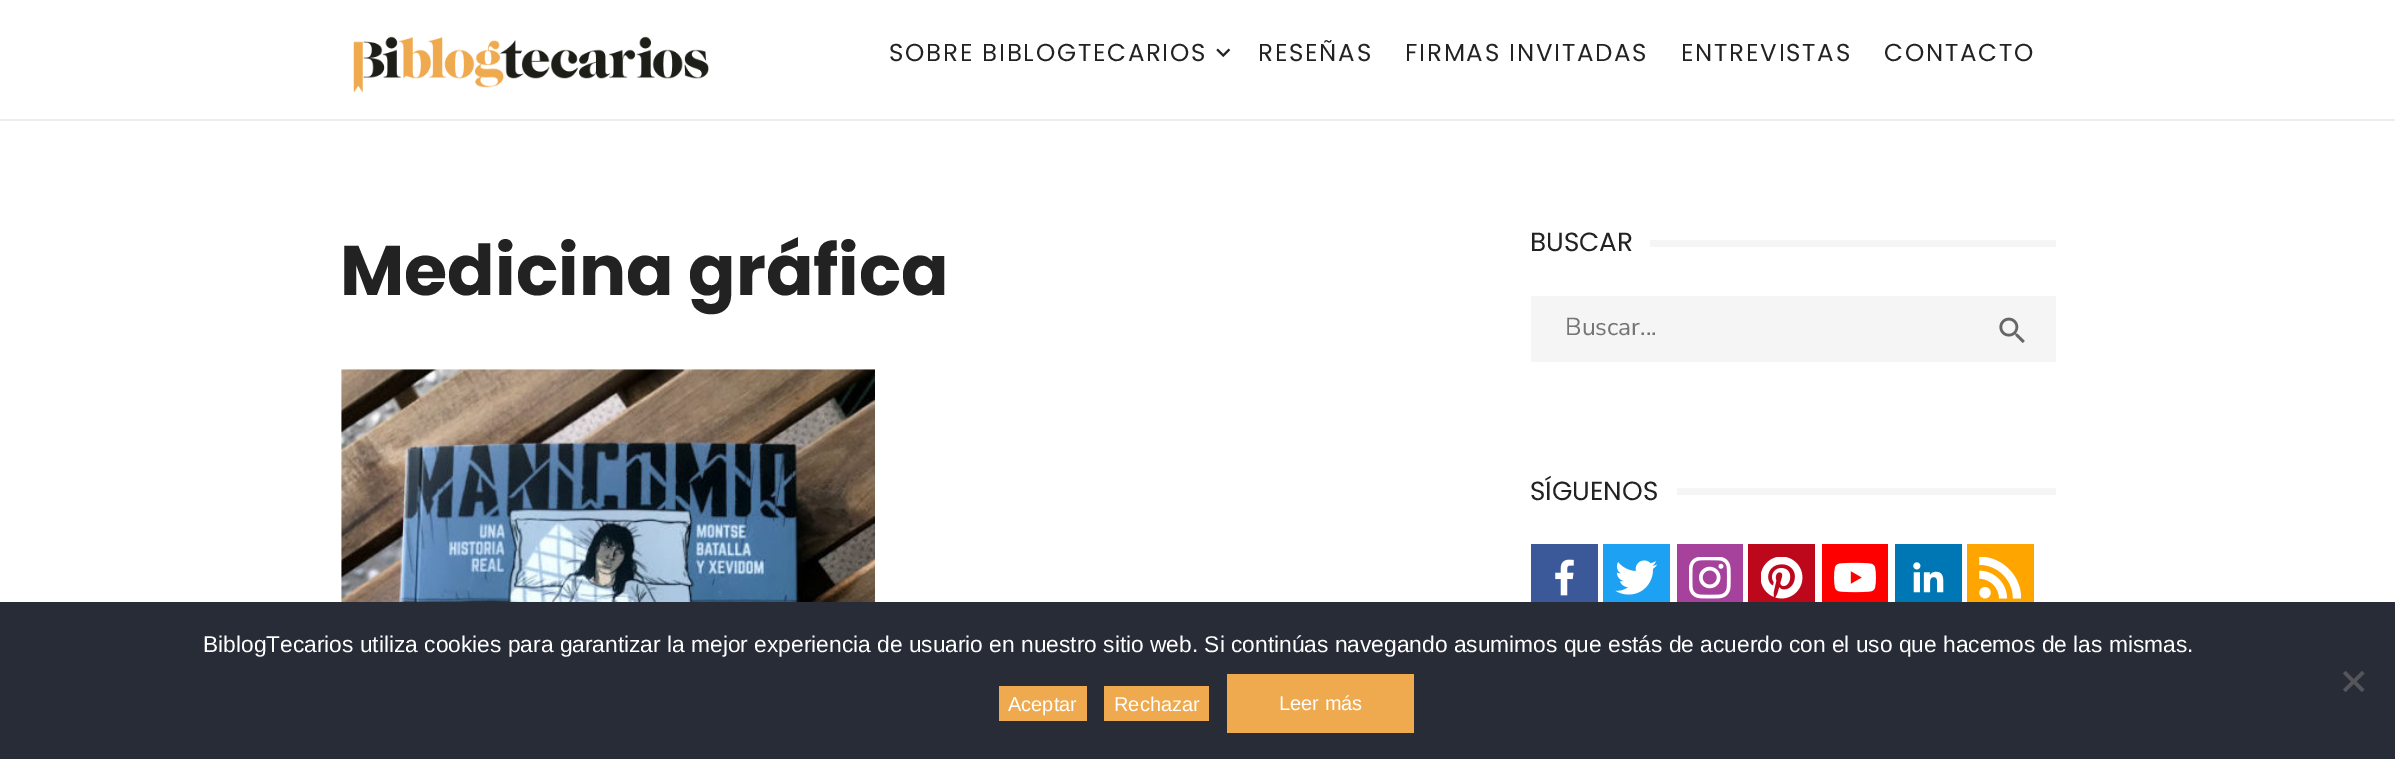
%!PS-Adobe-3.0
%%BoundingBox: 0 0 2395 759
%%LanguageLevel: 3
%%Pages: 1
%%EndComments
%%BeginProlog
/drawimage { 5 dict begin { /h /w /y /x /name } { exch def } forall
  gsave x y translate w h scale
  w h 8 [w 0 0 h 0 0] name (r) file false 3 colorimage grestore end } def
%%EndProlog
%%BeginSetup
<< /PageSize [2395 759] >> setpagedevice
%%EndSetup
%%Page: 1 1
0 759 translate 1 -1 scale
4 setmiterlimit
1 setgray
0 0 2395 759 rectfill
0.929 setgray
0 119 2395 2 rectfill
(images/1.raw) 353 36 356 57 drawimage
(images/2.raw) 1216 48 15 9 drawimage
(images/3.raw) 341 369 534 233 drawimage
0.961 setgray
1650 240 406 7 rectfill
1531 296 525 66 rectfill
(images/4.raw) 1999 317 26 26 drawimage
1677 488 379 7 rectfill
0.231 0.349 0.596 setrgbcolor
1531 544 67 58 rectfill
(images/5.raw) 1555 559 19 37 drawimage
0.114 0.631 0.949 setrgbcolor
1603 544 67 58 rectfill
(images/6.raw) 1615 560 42 35 drawimage
0.651 0.259 0.612 setrgbcolor
1677 544 66 58 rectfill
(images/7.raw) 1689 557 42 42 drawimage
0.741 0.031 0.11 setrgbcolor
1748 544 67 58 rectfill
(images/8.raw) 1761 557 42 42 drawimage
1 0 0 setrgbcolor
1822 544 66 58 rectfill
(images/9.raw) 1834 562 42 31 drawimage
0 0.467 0.71 setrgbcolor
1895 544 67 58 rectfill
(images/10.raw) 1913 562 31 31 drawimage
1 0.647 0 setrgbcolor
1967 544 67 58 rectfill
(images/11.raw) 1979 557 42 42 drawimage
0.157 0.173 0.212 setrgbcolor
0 602 2395 157 rectfill
0.329 0.337 0.357 setrgbcolor
newpath 2362 671 moveto 2364.5 673.5 lineto 2345.5 692 lineto 2343 689.5 lineto closepath fill
newpath 2343 673.5 moveto 2345.5 671 lineto 2364.5 689.5 lineto 2362 692 lineto closepath fill
0.937 0.663 0.306 setrgbcolor
999 686 88 35 rectfill
1104 686 105 35 rectfill
1227 674 187 59 rectfill
/Poppins-Regular [24.5 0 0 -24.5 0 0] selectfont
0.133 setgray
889 61 moveto 1.75 0 (SOBRE BIBLOGTECARIOS) ashow
1258 61 moveto 1.75 0 (RESEÑAS) ashow
1405 61 moveto 1.75 0 (FIRMAS INVITADAS) ashow
1681 61 moveto 1.75 0 (ENTREVISTAS) ashow
1884 61 moveto 1.75 0 (CONTACTO) ashow
/Poppins-Bold [70 0 0 -70 0 0] selectfont
340 295 moveto (Medicina gráfica) show
/Poppins-Regular [26.25 0 0 -26.25 0 0] selectfont
1530 251 moveto (BUSCAR) show
/NunitoSans-Regular [24.5 0 0 -24.5 0 0] selectfont
0.459 setgray
1565 335 moveto (Buscar...) show
/Poppins-Regular [26.25 0 0 -26.25 0 0] selectfont
0.133 setgray
1530 500 moveto (SÍGUENOS) show
/LiberationSans-Regular [22.75 0 0 -22.75 0 0] selectfont
1 setgray
203 652 moveto (BiblogTecarios utiliza cookies para garantizar la mejor experiencia de usuario en nuestro sitio web. Si continúas navegando asumimos que estás de acuerdo con el uso que hacemos de las mismas.) show
/LiberationSans-Regular [20 0 0 -20 0 0] selectfont
1008 711 moveto (Aceptar) show
1114 711 moveto (Rechazar) show
1279 710 moveto (Leer más) show
showpage
%%EOF
